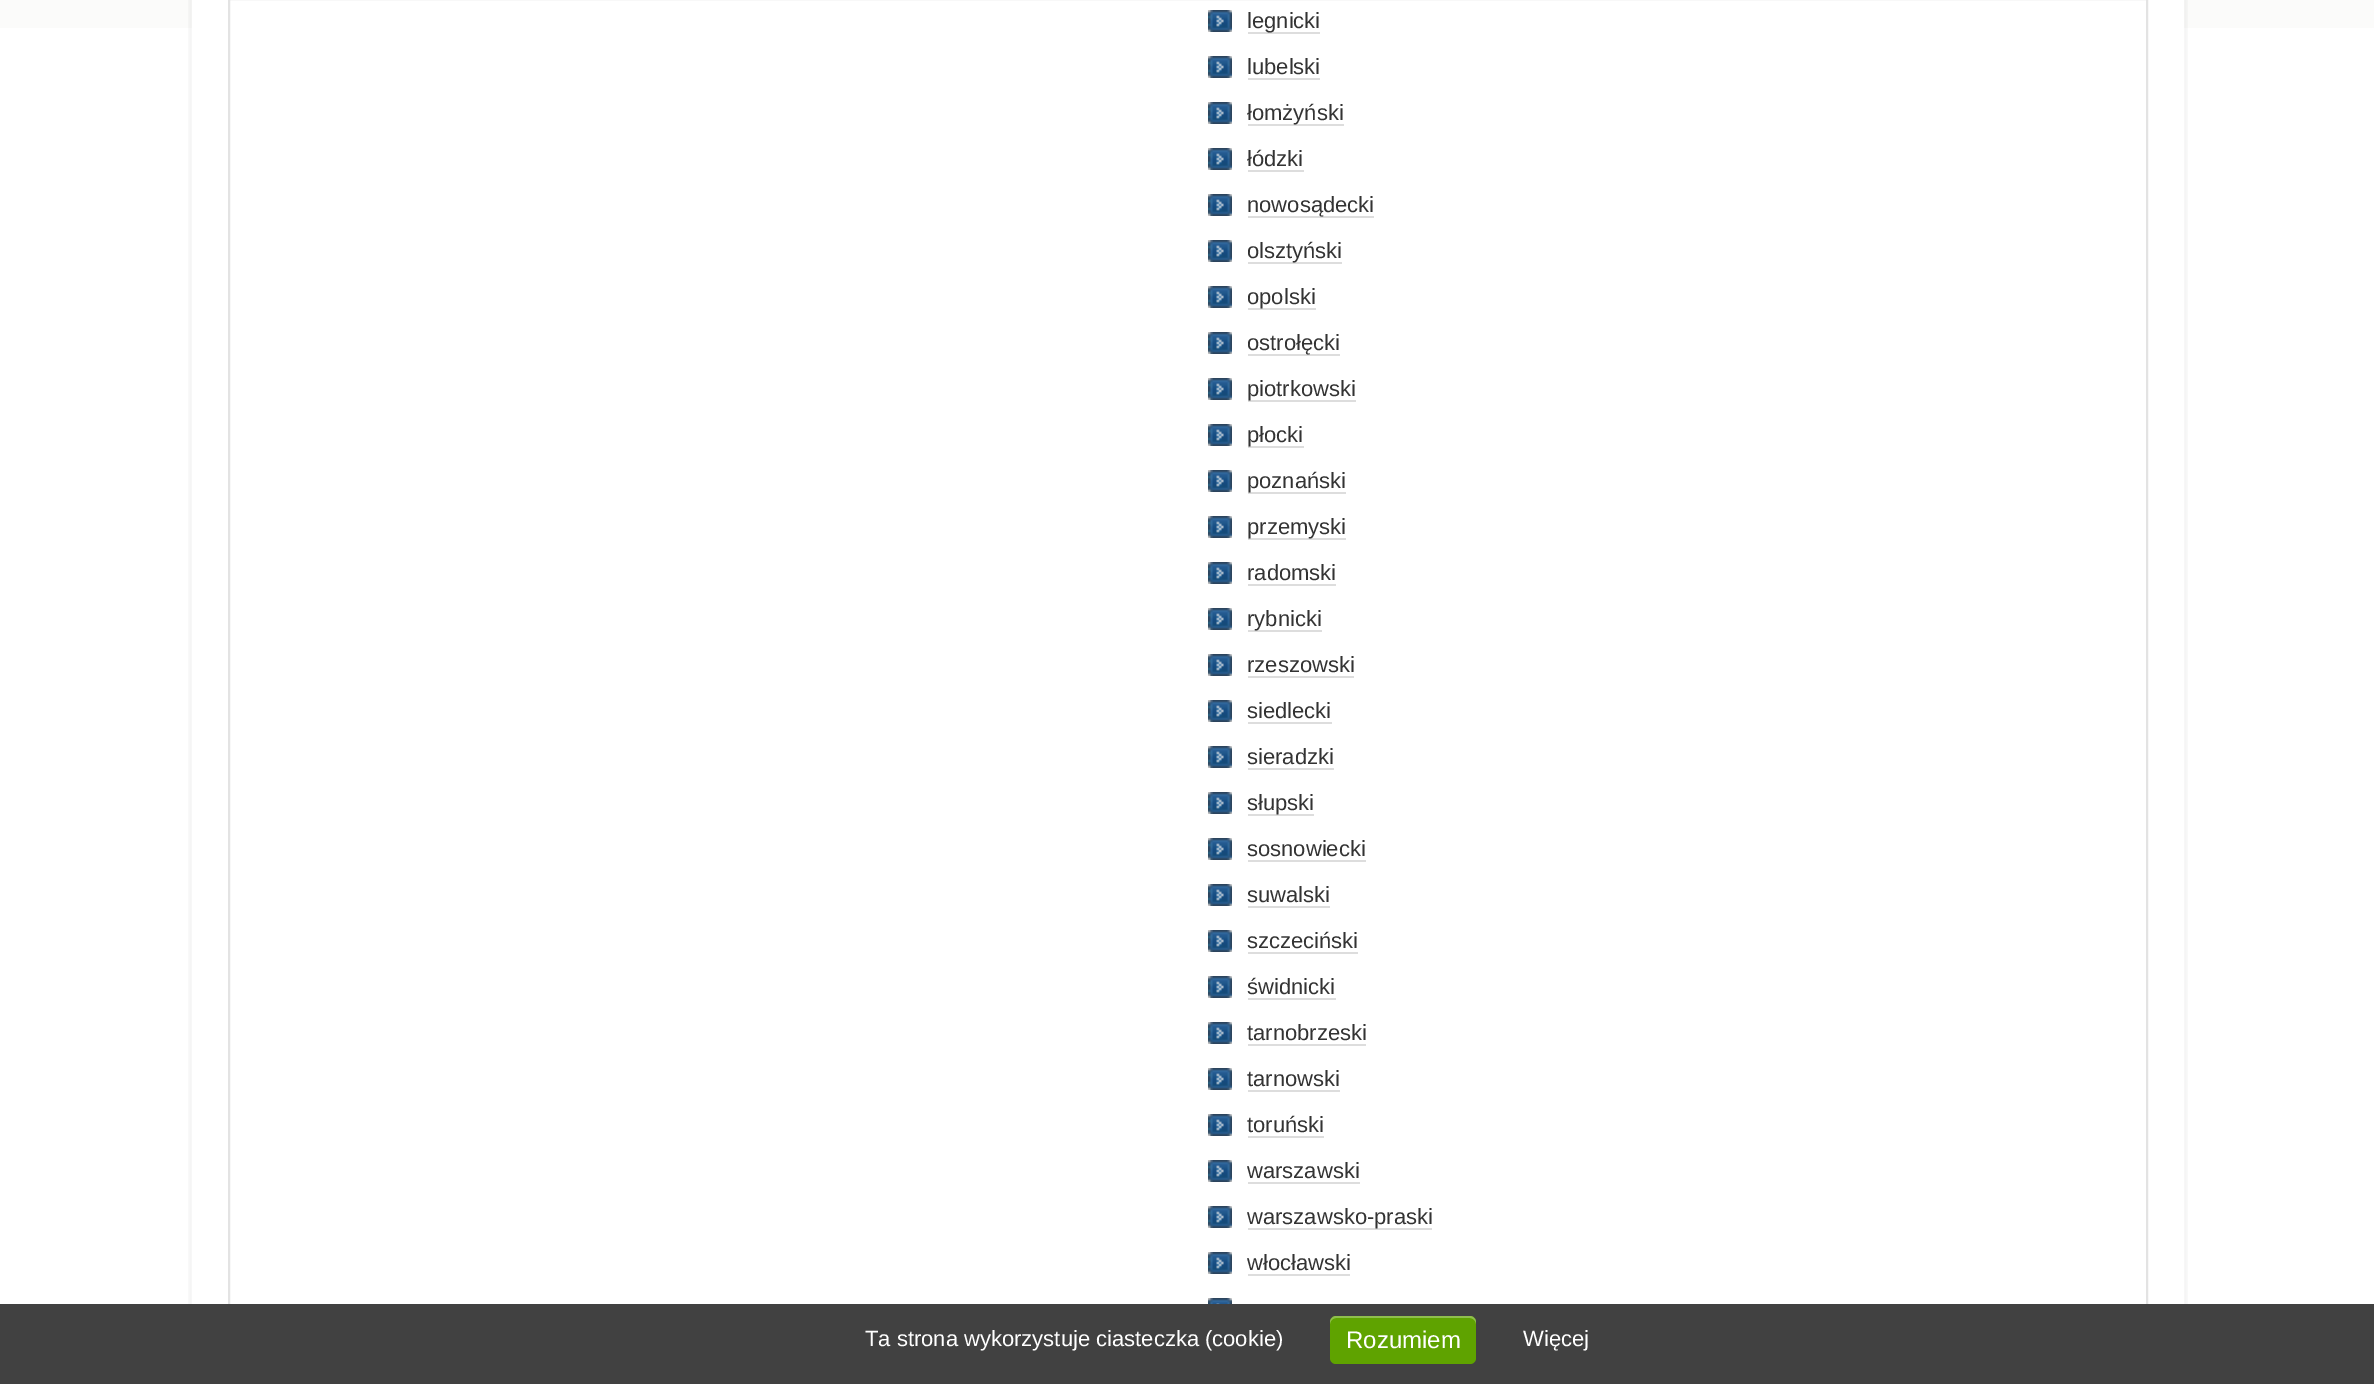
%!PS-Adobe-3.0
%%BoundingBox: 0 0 2374 1384
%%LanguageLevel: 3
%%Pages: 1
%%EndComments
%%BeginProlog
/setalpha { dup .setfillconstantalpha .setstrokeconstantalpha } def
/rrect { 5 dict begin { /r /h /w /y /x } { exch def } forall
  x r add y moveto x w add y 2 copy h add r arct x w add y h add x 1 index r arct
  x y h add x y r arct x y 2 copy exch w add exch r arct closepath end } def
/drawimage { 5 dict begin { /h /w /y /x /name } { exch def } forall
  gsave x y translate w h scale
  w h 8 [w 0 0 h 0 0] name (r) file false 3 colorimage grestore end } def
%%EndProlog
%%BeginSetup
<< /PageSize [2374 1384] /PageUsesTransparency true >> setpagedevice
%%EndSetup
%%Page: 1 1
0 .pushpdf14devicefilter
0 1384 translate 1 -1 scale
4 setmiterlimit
1 setgray
0 0 2374 1384 rectfill
0.984 0.984 0.98 setrgbcolor
0 0 2374 28 rectfill
(images/1.raw) 188 0 2000 1304 drawimage
1 setgray
192 0 1992 1304 rectfill
0.89 setgray
2 setlinewidth
229 -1 1918 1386 rectstroke
(images/2.raw) 1208 10 24 22 drawimage
0.867 setgray
1248 32 72 2 rectfill
(images/2.raw) 1208 56 24 22 drawimage
1248 78 72 2 rectfill
(images/2.raw) 1208 102 24 22 drawimage
1248 124 96 2 rectfill
(images/2.raw) 1208 148 24 22 drawimage
1248 170 56 2 rectfill
(images/2.raw) 1208 194 24 22 drawimage
1248 216 126 2 rectfill
(images/2.raw) 1208 240 24 22 drawimage
1248 262 94 2 rectfill
(images/2.raw) 1208 286 24 22 drawimage
1248 308 68 2 rectfill
(images/2.raw) 1208 332 24 22 drawimage
1248 354 92 2 rectfill
(images/2.raw) 1208 378 24 22 drawimage
1248 400 108 2 rectfill
(images/2.raw) 1208 424 24 22 drawimage
1248 446 56 2 rectfill
(images/2.raw) 1208 470 24 22 drawimage
1248 492 98 2 rectfill
(images/2.raw) 1208 516 24 22 drawimage
1248 538 98 2 rectfill
(images/2.raw) 1208 562 24 22 drawimage
1248 584 88 2 rectfill
(images/2.raw) 1208 608 24 22 drawimage
1248 630 74 2 rectfill
(images/2.raw) 1208 654 24 22 drawimage
1248 676 106 2 rectfill
(images/2.raw) 1208 700 24 22 drawimage
1248 722 84 2 rectfill
(images/2.raw) 1208 746 24 22 drawimage
1248 768 86 2 rectfill
(images/2.raw) 1208 792 24 22 drawimage
1248 814 66 2 rectfill
(images/2.raw) 1208 838 24 22 drawimage
1248 860 118 2 rectfill
(images/2.raw) 1208 884 24 22 drawimage
1248 906 82 2 rectfill
(images/2.raw) 1208 930 24 22 drawimage
1248 952 110 2 rectfill
(images/2.raw) 1208 976 24 22 drawimage
1248 998 88 2 rectfill
(images/2.raw) 1208 1022 24 22 drawimage
1248 1044 118 2 rectfill
(images/2.raw) 1208 1068 24 22 drawimage
1248 1090 92 2 rectfill
(images/2.raw) 1208 1114 24 22 drawimage
1248 1136 76 2 rectfill
(images/2.raw) 1208 1160 24 22 drawimage
1248 1182 112 2 rectfill
(images/2.raw) 1208 1206 24 22 drawimage
1248 1228 184 2 rectfill
(images/2.raw) 1208 1252 24 22 drawimage
1248 1274 102 2 rectfill
(images/3.raw) 1208 1298 24 6 drawimage
0.255 setgray
0 1304 2374 80 rectfill
0.373 0.639 0 setrgbcolor
1330 1316 146 48 6 rrect fill
0.3 setalpha
1 setgray
newpath 1336 1318 moveto 1470 1318 lineto 1473 1318 1476 1321 1476 1324 curveto 1476 1322 lineto 1476 1319 1473 1316 1470 1316 curveto 1336 1316 lineto 1333 1316 1330 1319 1330 1322 curveto 1330 1324 lineto 1330 1321 1333 1318 1336 1318 curveto closepath fill
/LiberationSans-Regular [22 0 0 -22 0 0] selectfont
1 setalpha
0.2 setgray
1247 28 moveto (legnicki) show
1247 74 moveto (lubelski) show
1247 120 moveto (łomżyński) show
1247 166 moveto (łódzki) show
1247 212 moveto (nowosądecki) show
1247 258 moveto (olsztyński) show
1247 304 moveto (opolski) show
1247 350 moveto (ostrołęcki) show
1247 396 moveto (piotrkowski) show
1247 442 moveto (płocki) show
1247 488 moveto (poznański) show
1247 534 moveto (przemyski) show
1247 580 moveto (radomski) show
1247 626 moveto (rybnicki) show
1247 672 moveto (rzeszowski) show
1247 718 moveto (siedlecki) show
1247 764 moveto (sieradzki) show
1247 810 moveto (słupski) show
1247 856 moveto (sosnowiecki) show
1247 902 moveto (suwalski) show
1247 948 moveto (szczeciński) show
1247 994 moveto (świdnicki) show
1247 1040 moveto (tarnobrzeski) show
1247 1086 moveto (tarnowski) show
1247 1132 moveto (toruński) show
1247 1178 moveto (warszawski) show
1247 1224 moveto (warszawsko-praski) show
1247 1270 moveto (włocławski) show
1 setgray
865 1346 moveto (Ta strona wykorzystuje ciasteczka \(cookie\)) show
/LiberationSans-Regular [24 0 0 -24 0 0] selectfont
1346 1348 moveto (Rozumiem) show
/LiberationSans-Regular [22 0 0 -22 0 0] selectfont
1523 1346 moveto (Więcej) show
.poppdf14devicefilter showpage
%%EOF
